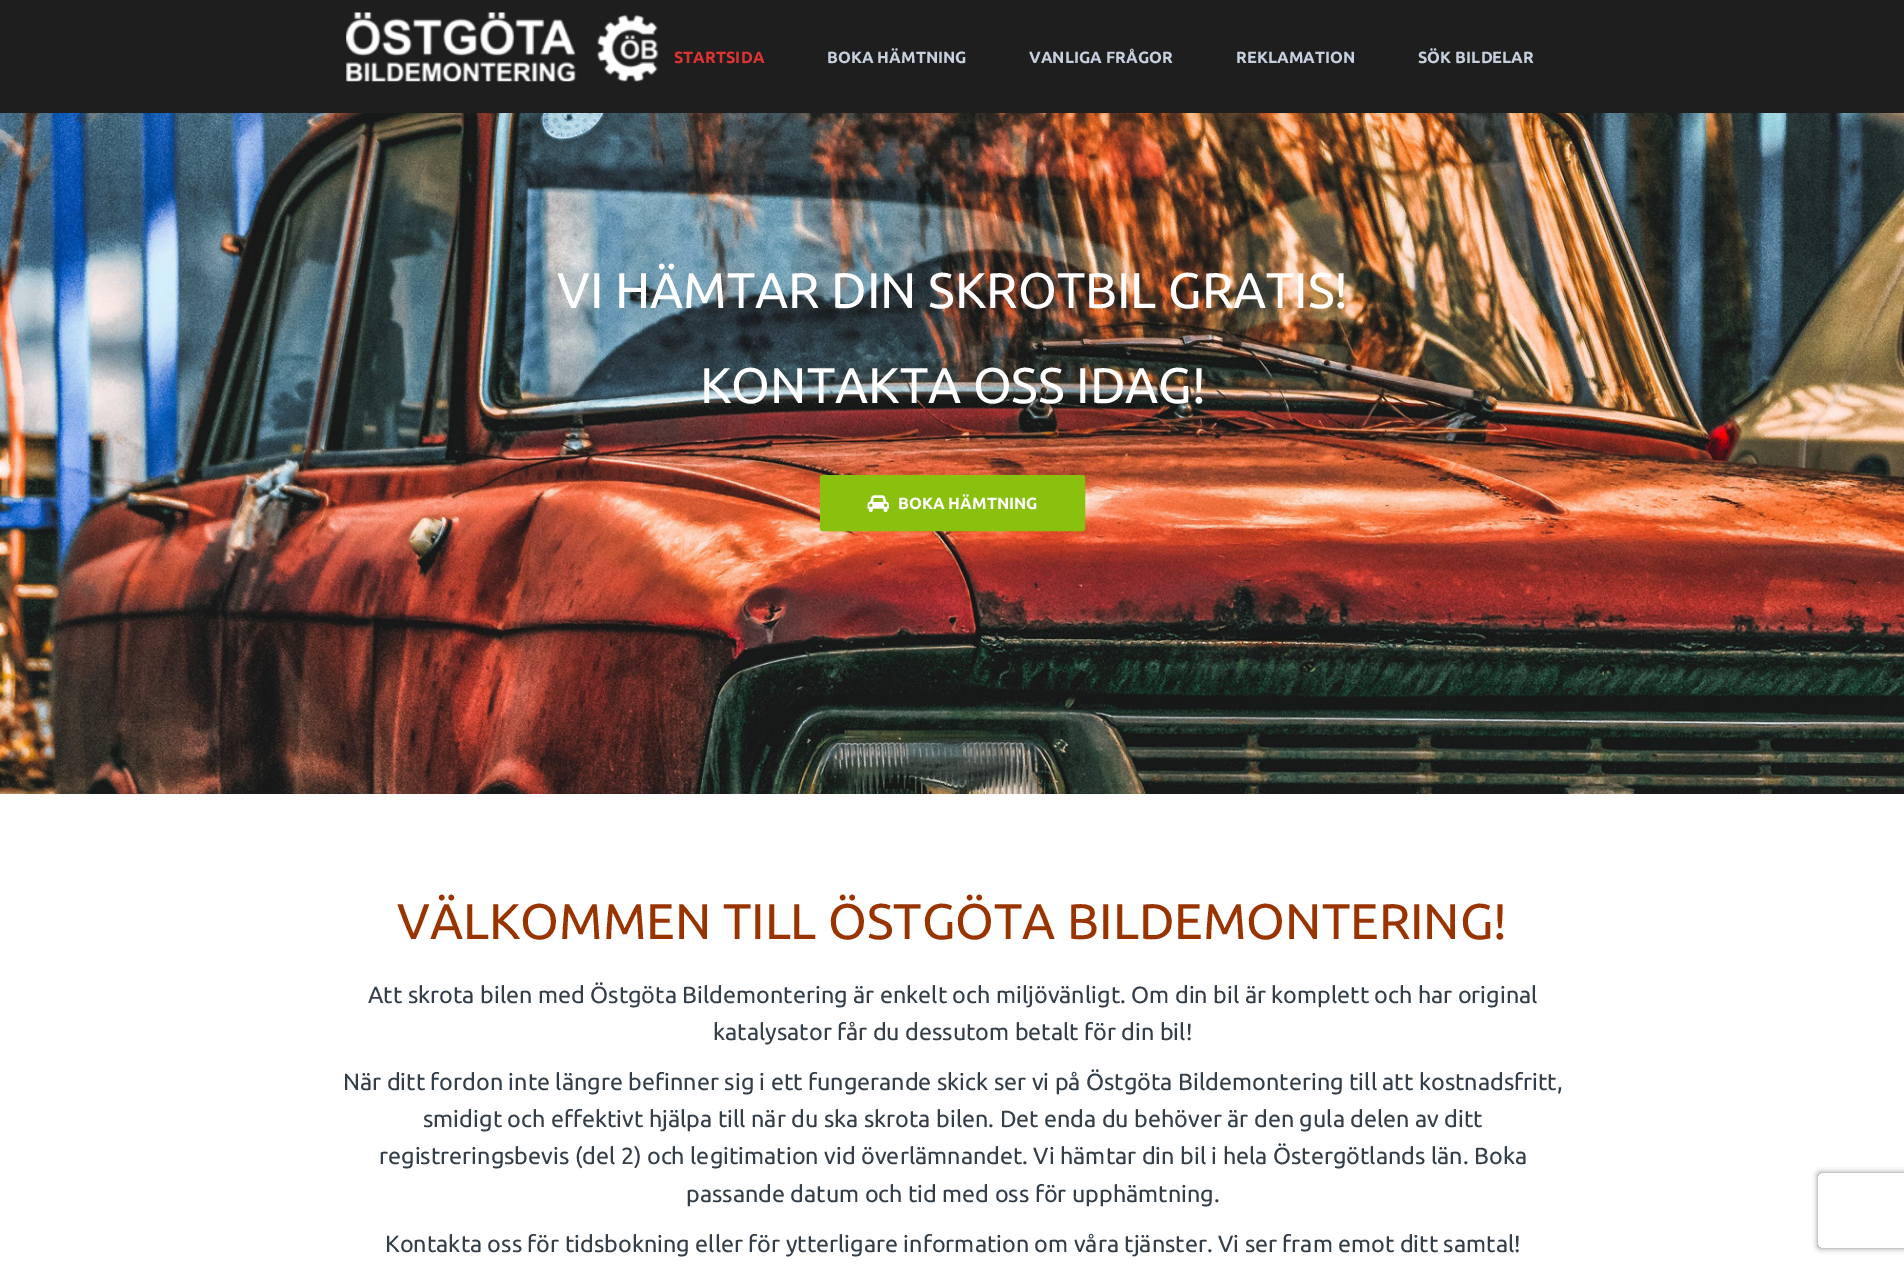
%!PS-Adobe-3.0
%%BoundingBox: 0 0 1904 1264
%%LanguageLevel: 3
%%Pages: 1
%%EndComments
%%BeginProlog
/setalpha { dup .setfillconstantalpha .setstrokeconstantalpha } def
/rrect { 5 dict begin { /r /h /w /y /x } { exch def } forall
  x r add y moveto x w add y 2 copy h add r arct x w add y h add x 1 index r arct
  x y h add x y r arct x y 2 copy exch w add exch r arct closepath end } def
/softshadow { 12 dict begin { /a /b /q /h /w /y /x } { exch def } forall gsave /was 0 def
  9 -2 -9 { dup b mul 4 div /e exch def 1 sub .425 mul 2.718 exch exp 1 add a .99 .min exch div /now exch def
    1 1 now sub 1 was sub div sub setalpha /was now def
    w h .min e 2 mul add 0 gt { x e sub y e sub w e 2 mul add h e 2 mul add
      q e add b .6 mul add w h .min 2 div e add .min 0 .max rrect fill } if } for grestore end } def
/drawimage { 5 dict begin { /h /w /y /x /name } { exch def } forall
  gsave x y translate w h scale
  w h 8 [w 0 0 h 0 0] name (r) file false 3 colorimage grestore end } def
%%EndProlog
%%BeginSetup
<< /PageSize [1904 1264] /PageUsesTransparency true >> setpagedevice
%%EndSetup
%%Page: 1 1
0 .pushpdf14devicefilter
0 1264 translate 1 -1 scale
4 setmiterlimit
1 setgray
0 0 1904 1264 rectfill
0.118 setgray
0 0 1904 113 rectfill
(images/1.raw) 346 12 313 70 drawimage
(images/2.raw) 0 113 1904 681 drawimage
0.537 0.757 0.055 setrgbcolor
820.5 475.5 264 55 2 rrect gsave fill grestore
stroke
(images/3.raw) 867 495 22 17 drawimage
gsave
newpath 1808 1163 moveto 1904 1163 lineto 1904 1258 lineto 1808 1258 lineto closepath 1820.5 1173 moveto 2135.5 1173 lineto 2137 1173 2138 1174 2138 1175.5 curveto 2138 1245.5 lineto 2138 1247 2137 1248 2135.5 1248 curveto 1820.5 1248 lineto 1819 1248 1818 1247 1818 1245.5 curveto 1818 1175.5 lineto 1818 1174 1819 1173 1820.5 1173 curveto closepath eoclip newpath
0.502 setgray
1818 1173 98 75 2.5 3 1 softshadow
grestore
/Ubuntu-Bold [16.25 0 0 -16.25 0 0] selectfont
0.867 0.2 0.2 setrgbcolor
674 63 moveto (STARTSIDA) show
0.773 0.812 0.867 setrgbcolor
827 63 moveto (BOKA HÄMTNING) show
1029 63 moveto (VANLIGA FRÅGOR) show
1236 63 moveto (REKLAMATION) show
1418 63 moveto (SÖK BILDELAR) show
/Ubuntu-Regular [50 0 0 -50 0 0] selectfont
1 setgray
557 308 moveto (VI HÄMTAR DIN SKROTBIL GRATIS!) show
700 403 moveto (KONTAKTA OSS IDAG!) show
/Ubuntu-Bold [16.25 0 0 -16.25 0 0] selectfont
898 509 moveto (BOKA HÄMTNING) show
/Ubuntu-Regular [50 0 0 -50 0 0] selectfont
0.6 0.2 0 setrgbcolor
397 939 moveto (VÄLKOMMEN TILL ÖSTGÖTA BILDEMONTERING!) show
/Ubuntu-Regular [23.33 0 0 -23.33 0 0] selectfont
0.2 0.243 0.282 setrgbcolor
368 1003 moveto (Att skrota bilen med Östgöta Bildemontering är enkelt och miljövänligt. Om din bil är komplett och har original) show
713 1040 moveto (katalysator får du dessutom betalt för din bil!) show
343 1090 moveto (När ditt fordon inte längre befinner sig i ett fungerande skick ser vi på Östgöta Bildemontering till att kostnadsfritt,) show
423 1127 moveto (smidigt och effektivt hjälpa till när du ska skrota bilen. Det enda du behöver är den gula delen av ditt) show
379 1164 moveto (registreringsbevis \(del 2\) och legitimation vid överlämnandet. Vi hämtar din bil i hela Östergötlands län. Boka) show
686 1202 moveto (passande datum och tid med oss för upphämtning.) show
385 1252 moveto (Kontakta oss för tidsbokning eller för ytterligare information om våra tjänster. Vi ser fram emot ditt samtal!) show
.poppdf14devicefilter showpage
%%EOF
